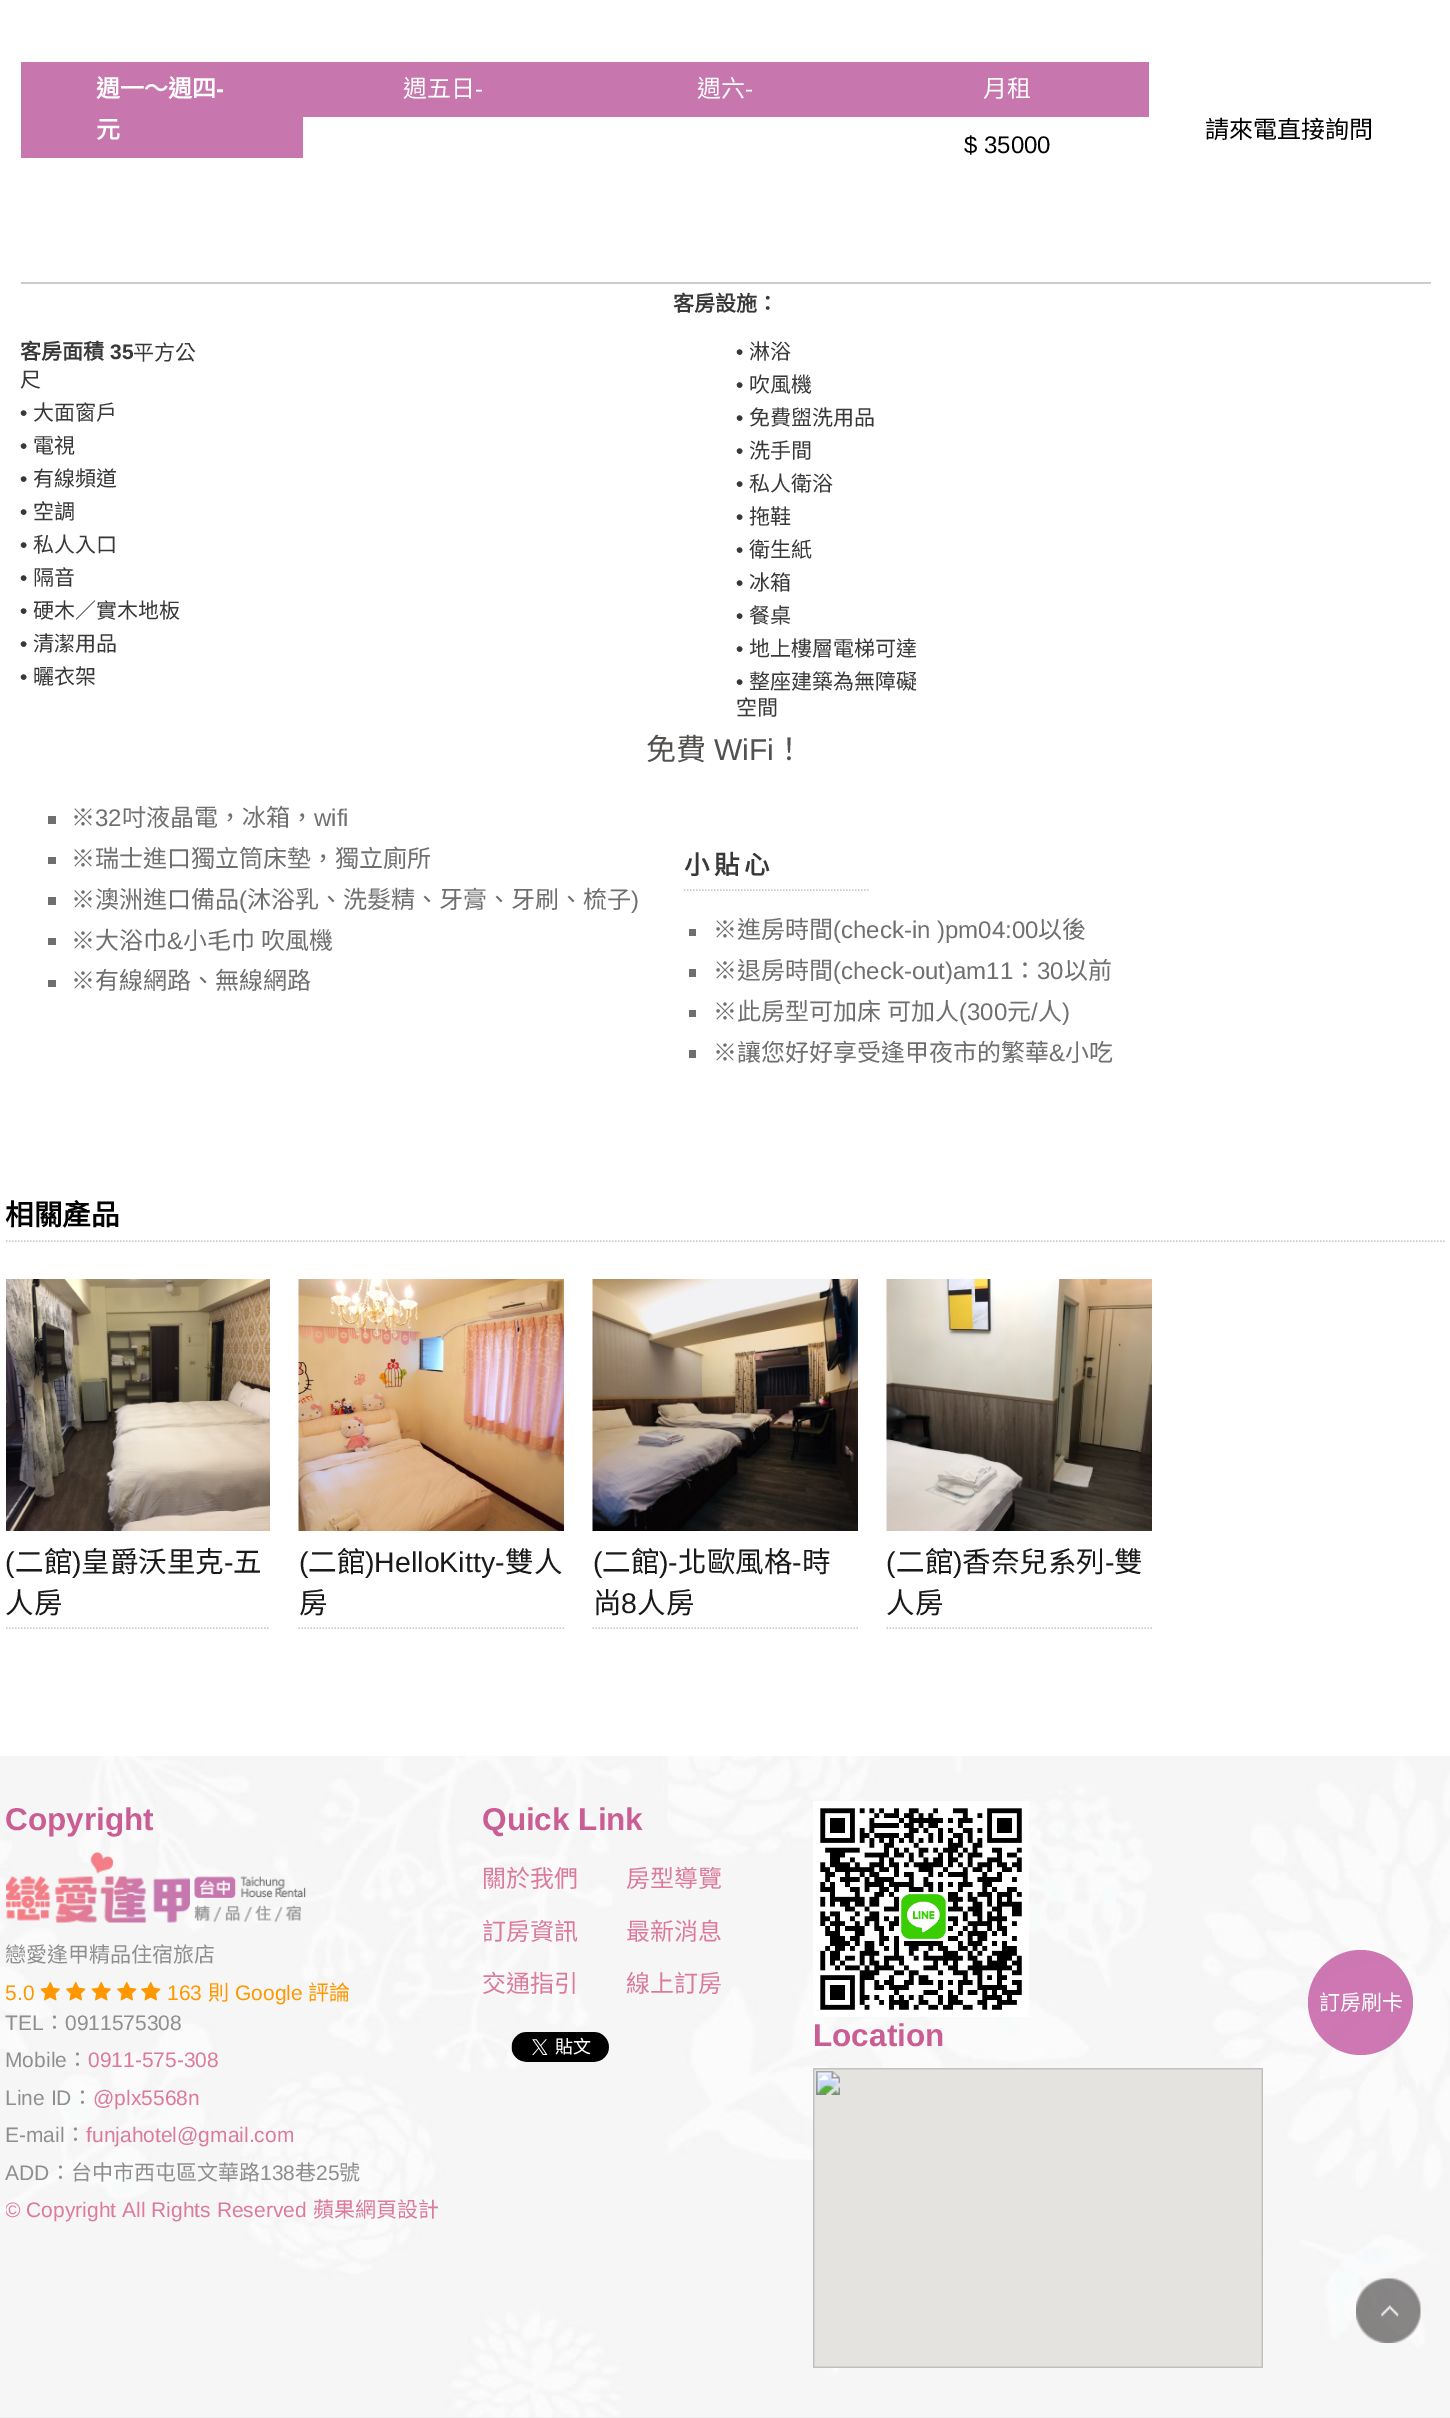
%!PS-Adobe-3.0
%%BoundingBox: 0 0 1450 2418
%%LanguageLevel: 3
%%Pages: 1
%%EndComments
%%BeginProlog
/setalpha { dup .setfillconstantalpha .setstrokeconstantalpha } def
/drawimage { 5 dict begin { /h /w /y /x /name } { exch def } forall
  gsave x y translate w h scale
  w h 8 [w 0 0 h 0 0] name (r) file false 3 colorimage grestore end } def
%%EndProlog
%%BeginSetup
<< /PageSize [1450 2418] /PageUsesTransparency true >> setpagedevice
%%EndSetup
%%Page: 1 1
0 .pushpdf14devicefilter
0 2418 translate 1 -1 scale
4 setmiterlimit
1 setgray
0 0 1450 2418 rectfill
0.8 setgray
21 282 1410 2 rectfill
0.78 0.467 0.682 setrgbcolor
21 62 282 96 rectfill
303 62 846 55 rectfill
0.435 setgray
48 816 8 8 rectfill
48 857 8 7 rectfill
48 897 8 8 rectfill
48 938 8 7 rectfill
48 980 8 7 rectfill
0.796 setgray
1.5 setlinewidth
[1.5 1.5] 0 setdash
newpath 684 890 moveto 868.5 890 lineto stroke
0.435 setgray
689 929 7 7 rectfill
689 969 7 8 rectfill
689 1010 7 7 rectfill
689 1050 7 8 rectfill
0.796 setgray
newpath 6 1241 moveto 1446 1241 lineto stroke
(images/1.raw) 6 1279 264 252 drawimage
newpath 6 1628 moveto 270 1628 lineto stroke
(images/2.raw) 298 1279 266 252 drawimage
newpath 298.5 1628 moveto 564 1628 lineto stroke
(images/3.raw) 592 1279 266 252 drawimage
newpath 592.5 1628 moveto 858 1628 lineto stroke
(images/4.raw) 886 1279 266 252 drawimage
newpath 886.5 1628 moveto 1152 1628 lineto stroke
0.914 0.914 0.91 setrgbcolor
0 2417 1450 1 rectfill
(images/5.raw) 0 1756 1450 662 drawimage
(images/6.raw) 6 1852 300 71 drawimage
(images/7.raw) 40 1981 20 20 drawimage
(images/8.raw) 66 1981 20 20 drawimage
(images/9.raw) 91 1981 20 20 drawimage
(images/8.raw) 117 1981 20 20 drawimage
(images/8.raw) 141 1981 20 20 drawimage
(images/10.raw) 511 2032 98 30 drawimage
(images/11.raw) 813 1801 216 216 drawimage
(images/12.raw) 813 2068 450 300 drawimage
0.81 setalpha
0.765 0.349 0.635 setrgbcolor
newpath 1360.5 2002.5 52.5 0 360 arc closepath fill
1 setalpha
(images/13.raw) 1356 2278 65 65 drawimage
/NotoSansCJKTC-Bold [24 0 0 -24 0 0] selectfont
1 setgray
96 97 moveto (週一～週四) show
/LiberationSans-Bold [24 0 0 -24 0 0] selectfont
216 97 moveto (-) show
/NotoSansCJKTC-Bold [24 0 0 -24 0 0] selectfont
96 138 moveto (元) show
/NotoSansCJKTC-Regular [24 0 0 -24 0 0] selectfont
403 97 moveto (週五日) show
/LiberationSans-Regular [24 0 0 -24 0 0] selectfont
475 97 moveto (-) show
/NotoSansCJKTC-Regular [24 0 0 -24 0 0] selectfont
697 97 moveto (週六) show
/LiberationSans-Regular [24 0 0 -24 0 0] selectfont
745 97 moveto (-) show
/NotoSansCJKTC-Regular [24 0 0 -24 0 0] selectfont
983 97 moveto (月租) show
/LiberationSans-Regular [24 0 0 -24 0 0] selectfont
0 setgray
964 153 moveto ($ 35000) show
/NotoSansCJKTC-Regular [24 0 0 -24 0 0] selectfont
1205 138 moveto (請來電直接詢問) show
/NotoSansCJKTC-Bold [21 0 0 -21 0 0] selectfont
0.22 setgray
673 311 moveto (客房設施：) show
20 359 moveto (客房面積) show
/LiberationSans-Bold [21 0 0 -21 0 0] selectfont
110 359 moveto (35) show
/NotoSansCJKTC-Regular [21 0 0 -21 0 0] selectfont
133 360 moveto (平方公) show
20 387 moveto (尺) show
/LiberationSans-Regular [21 0 0 -21 0 0] selectfont
736 359 moveto (•) show
/NotoSansCJKTC-Regular [21 0 0 -21 0 0] selectfont
749 359 moveto (淋浴) show
/LiberationSans-Regular [21 0 0 -21 0 0] selectfont
736 392 moveto (•) show
/NotoSansCJKTC-Regular [21 0 0 -21 0 0] selectfont
749 392 moveto (吹風機) show
/LiberationSans-Regular [21 0 0 -21 0 0] selectfont
20 420 moveto (•) show
/NotoSansCJKTC-Regular [21 0 0 -21 0 0] selectfont
33 420 moveto (大面窗戶) show
/LiberationSans-Regular [21 0 0 -21 0 0] selectfont
736 425 moveto (•) show
/NotoSansCJKTC-Regular [21 0 0 -21 0 0] selectfont
749 425 moveto (免費盥洗用品) show
/LiberationSans-Regular [21 0 0 -21 0 0] selectfont
20 453 moveto (•) show
/NotoSansCJKTC-Regular [21 0 0 -21 0 0] selectfont
33 453 moveto (電視) show
/LiberationSans-Regular [21 0 0 -21 0 0] selectfont
736 458 moveto (•) show
/NotoSansCJKTC-Regular [21 0 0 -21 0 0] selectfont
749 458 moveto (洗手間) show
/LiberationSans-Regular [21 0 0 -21 0 0] selectfont
20 486 moveto (•) show
/NotoSansCJKTC-Regular [21 0 0 -21 0 0] selectfont
33 486 moveto (有線頻道) show
/LiberationSans-Regular [21 0 0 -21 0 0] selectfont
736 491 moveto (•) show
/NotoSansCJKTC-Regular [21 0 0 -21 0 0] selectfont
749 491 moveto (私人衛浴) show
/LiberationSans-Regular [21 0 0 -21 0 0] selectfont
20 519 moveto (•) show
/NotoSansCJKTC-Regular [21 0 0 -21 0 0] selectfont
33 519 moveto (空調) show
/LiberationSans-Regular [21 0 0 -21 0 0] selectfont
736 524 moveto (•) show
/NotoSansCJKTC-Regular [21 0 0 -21 0 0] selectfont
749 524 moveto (拖鞋) show
/LiberationSans-Regular [21 0 0 -21 0 0] selectfont
20 552 moveto (•) show
/NotoSansCJKTC-Regular [21 0 0 -21 0 0] selectfont
33 552 moveto (私人入口) show
/LiberationSans-Regular [21 0 0 -21 0 0] selectfont
736 557 moveto (•) show
/NotoSansCJKTC-Regular [21 0 0 -21 0 0] selectfont
749 557 moveto (衛生紙) show
/LiberationSans-Regular [21 0 0 -21 0 0] selectfont
20 585 moveto (•) show
/NotoSansCJKTC-Regular [21 0 0 -21 0 0] selectfont
33 585 moveto (隔音) show
/LiberationSans-Regular [21 0 0 -21 0 0] selectfont
736 590 moveto (•) show
/NotoSansCJKTC-Regular [21 0 0 -21 0 0] selectfont
749 590 moveto (冰箱) show
/LiberationSans-Regular [21 0 0 -21 0 0] selectfont
20 618 moveto (•) show
/NotoSansCJKTC-Regular [21 0 0 -21 0 0] selectfont
33 618 moveto (硬木／實木地板) show
/LiberationSans-Regular [21 0 0 -21 0 0] selectfont
736 623 moveto (•) show
/NotoSansCJKTC-Regular [21 0 0 -21 0 0] selectfont
749 623 moveto (餐桌) show
/LiberationSans-Regular [21 0 0 -21 0 0] selectfont
20 651 moveto (•) show
/NotoSansCJKTC-Regular [21 0 0 -21 0 0] selectfont
33 651 moveto (清潔用品) show
/LiberationSans-Regular [21 0 0 -21 0 0] selectfont
736 656 moveto (•) show
/NotoSansCJKTC-Regular [21 0 0 -21 0 0] selectfont
749 656 moveto (地上樓層電梯可達) show
/LiberationSans-Regular [21 0 0 -21 0 0] selectfont
20 684 moveto (•) show
/NotoSansCJKTC-Regular [21 0 0 -21 0 0] selectfont
33 684 moveto (曬衣架) show
/LiberationSans-Regular [21 0 0 -21 0 0] selectfont
736 689 moveto (•) show
/NotoSansCJKTC-Regular [21 0 0 -21 0 0] selectfont
749 689 moveto (整座建築為無障礙) show
736 715 moveto (空間) show
/NotoSansCJKTC-Regular [30 0 0 -30 0 0] selectfont
0.322 0.318 0.31 setrgbcolor
646 760 moveto (免費) show
/LiberationSans-Regular [30 0 0 -30 0 0] selectfont
714 760 moveto (WiFi) show
/NotoSansCJKTC-Regular [30 0 0 -30 0 0] selectfont
774 760 moveto (！) show
/NotoSansCJKTC-Regular [24 0 0 -24 0 0] selectfont
0.435 setgray
71 826 moveto (※) show
/LiberationSans-Regular [24 0 0 -24 0 0] selectfont
95 826 moveto (32) show
/NotoSansCJKTC-Regular [24 0 0 -24 0 0] selectfont
122 826 moveto (吋液晶電，冰箱，) show
/LiberationSans-Regular [24 0 0 -24 0 0] selectfont
314 826 moveto (wifi) show
/NotoSansCJKTC-Regular [24 0 0 -24 0 0] selectfont
71 867 moveto (※瑞士進口獨立筒床墊，獨立廁所) show
71 908 moveto (※澳洲進口備品) show
/LiberationSans-Regular [24 0 0 -24 0 0] selectfont
239 908 moveto (\() show
/NotoSansCJKTC-Regular [24 0 0 -24 0 0] selectfont
247 908 moveto (沐浴乳、洗髮精、牙膏、牙刷、梳子) show
/LiberationSans-Regular [24 0 0 -24 0 0] selectfont
631 908 moveto (\)) show
/NotoSansCJKTC-Regular [24 0 0 -24 0 0] selectfont
71 949 moveto (※大浴巾) show
/LiberationSans-Regular [24 0 0 -24 0 0] selectfont
167 949 moveto (&) show
/NotoSansCJKTC-Regular [24 0 0 -24 0 0] selectfont
183 949 moveto 1 0 32 (小毛巾 吹風機) widthshow
71 989 moveto (※有線網路、無線網路) show
/NotoSansCJKTC-Bold [25.5 0 0 -25.5 0 0] selectfont
0.22 setgray
684 874 moveto 4.5 0 (小貼心) ashow
/NotoSansCJKTC-Regular [24 0 0 -24 0 0] selectfont
0.435 setgray
713 938 moveto (※進房時間) show
/LiberationSans-Regular [24 0 0 -24 0 0] selectfont
833 938 moveto (\(check-in \)pm04:00) show
/NotoSansCJKTC-Regular [24 0 0 -24 0 0] selectfont
1038 938 moveto (以後) show
713 979 moveto (※退房時間) show
/LiberationSans-Regular [24 0 0 -24 0 0] selectfont
833 979 moveto (\(check-out\)am11) show
/NotoSansCJKTC-Regular [24 0 0 -24 0 0] selectfont
1013 979 moveto (：) show
/LiberationSans-Regular [24 0 0 -24 0 0] selectfont
1037 979 moveto (30) show
/NotoSansCJKTC-Regular [24 0 0 -24 0 0] selectfont
1064 979 moveto (以前) show
713 1020 moveto 1 0 32 (※此房型可加床 可加人) widthshow
/LiberationSans-Regular [24 0 0 -24 0 0] selectfont
959 1020 moveto (\(300) show
/NotoSansCJKTC-Regular [24 0 0 -24 0 0] selectfont
1007 1020 moveto (元) show
/LiberationSans-Regular [24 0 0 -24 0 0] selectfont
1031 1020 moveto (/) show
/NotoSansCJKTC-Regular [24 0 0 -24 0 0] selectfont
1038 1020 moveto (人) show
/LiberationSans-Regular [24 0 0 -24 0 0] selectfont
1062 1020 moveto (\)) show
/NotoSansCJKTC-Regular [24 0 0 -24 0 0] selectfont
713 1061 moveto (※讓您好好享受逢甲夜市的繁華) show
/LiberationSans-Regular [24 0 0 -24 0 0] selectfont
1049 1061 moveto (&) show
/NotoSansCJKTC-Regular [24 0 0 -24 0 0] selectfont
1065 1061 moveto (小吃) show
/NotoSansCJKTC-Bold [28.5 0 0 -28.5 0 0] selectfont
0 setgray
5 1225 moveto (相關產品) show
/LiberationSans-Regular [28.5 0 0 -28.5 0 0] selectfont
0.098 setgray
5 1572 moveto (\() show
/NotoSansCJKTC-Regular [28.5 0 0 -28.5 0 0] selectfont
15 1572 moveto (二館) show
/LiberationSans-Regular [28.5 0 0 -28.5 0 0] selectfont
72 1572 moveto (\)) show
/NotoSansCJKTC-Regular [28.5 0 0 -28.5 0 0] selectfont
81 1572 moveto (皇爵沃里克) show
/LiberationSans-Regular [28.5 0 0 -28.5 0 0] selectfont
224 1572 moveto (-) show
/NotoSansCJKTC-Regular [28.5 0 0 -28.5 0 0] selectfont
233 1572 moveto (五) show
5 1613 moveto (人房) show
/LiberationSans-Regular [28.5 0 0 -28.5 0 0] selectfont
299 1572 moveto (\() show
/NotoSansCJKTC-Regular [28.5 0 0 -28.5 0 0] selectfont
308 1572 moveto (二館) show
/LiberationSans-Regular [28.5 0 0 -28.5 0 0] selectfont
365 1572 moveto (\)HelloKitty-) show
/NotoSansCJKTC-Regular [28.5 0 0 -28.5 0 0] selectfont
505 1572 moveto (雙人) show
299 1613 moveto (房) show
/LiberationSans-Regular [28.5 0 0 -28.5 0 0] selectfont
593 1572 moveto (\() show
/NotoSansCJKTC-Regular [28.5 0 0 -28.5 0 0] selectfont
602 1572 moveto (二館) show
/LiberationSans-Regular [28.5 0 0 -28.5 0 0] selectfont
659 1572 moveto (\)-) show
/NotoSansCJKTC-Regular [28.5 0 0 -28.5 0 0] selectfont
678 1572 moveto (北歐風格) show
/LiberationSans-Regular [28.5 0 0 -28.5 0 0] selectfont
792 1572 moveto (-) show
/NotoSansCJKTC-Regular [28.5 0 0 -28.5 0 0] selectfont
802 1572 moveto (時) show
593 1613 moveto (尚) show
/LiberationSans-Regular [28.5 0 0 -28.5 0 0] selectfont
621 1613 moveto (8) show
/NotoSansCJKTC-Regular [28.5 0 0 -28.5 0 0] selectfont
637 1613 moveto (人房) show
/LiberationSans-Regular [28.5 0 0 -28.5 0 0] selectfont
886 1572 moveto (\() show
/NotoSansCJKTC-Regular [28.5 0 0 -28.5 0 0] selectfont
896 1572 moveto (二館) show
/LiberationSans-Regular [28.5 0 0 -28.5 0 0] selectfont
953 1572 moveto (\)) show
/NotoSansCJKTC-Regular [28.5 0 0 -28.5 0 0] selectfont
962 1572 moveto (香奈兒系列) show
/LiberationSans-Regular [28.5 0 0 -28.5 0 0] selectfont
1105 1572 moveto (-) show
/NotoSansCJKTC-Regular [28.5 0 0 -28.5 0 0] selectfont
1114 1572 moveto (雙) show
886 1613 moveto (人房) show
/LiberationSans-Bold [31.5 0 0 -31.5 0 0] selectfont
0.792 0.369 0.58 setrgbcolor
5 1830 moveto (Copyright) show
/NotoSansCJKTC-Regular [21 0 0 -21 0 0] selectfont
0.557 setgray
5 1962 moveto (戀愛逢甲精品住宿旅店) show
/LiberationSans-Regular [21 0 0 -21 0 0] selectfont
1 0.596 0 setrgbcolor
5 2000 moveto (5.0) show
167 2000 moveto (163) show
/NotoSansCJKTC-Regular [21 0 0 -21 0 0] selectfont
208 2000 moveto (則) show
/LiberationSans-Regular [21 0 0 -21 0 0] selectfont
235 2000 moveto (Google) show
/NotoSansCJKTC-Regular [21 0 0 -21 0 0] selectfont
308 2000 moveto (評論) show
/LiberationSans-Regular [21 0 0 -21 0 0] selectfont
0.557 setgray
5 2030 moveto (TEL) show
/NotoSansCJKTC-Regular [21 0 0 -21 0 0] selectfont
44 2030 moveto (：) show
/LiberationSans-Regular [21 0 0 -21 0 0] selectfont
65 2030 moveto (0911575308) show
5 2067 moveto (Mobile) show
/NotoSansCJKTC-Regular [21 0 0 -21 0 0] selectfont
67 2067 moveto (：) show
/LiberationSans-Regular [21 0 0 -21 0 0] selectfont
0.859 0.478 0.612 setrgbcolor
88 2067 moveto (0911-575-308) show
0.557 setgray
5 2105 moveto (Line ID) show
/NotoSansCJKTC-Regular [21 0 0 -21 0 0] selectfont
72 2105 moveto (：) show
/LiberationSans-Regular [21 0 0 -21 0 0] selectfont
0.859 0.478 0.612 setrgbcolor
93 2105 moveto (@plx5568n) show
0.557 setgray
5 2142 moveto (E-mail) show
/NotoSansCJKTC-Regular [21 0 0 -21 0 0] selectfont
65 2142 moveto (：) show
/LiberationSans-Regular [21 0 0 -21 0 0] selectfont
0.859 0.478 0.612 setrgbcolor
86 2142 moveto (funjahotel@gmail.com) show
0.557 setgray
5 2180 moveto (ADD) show
/NotoSansCJKTC-Regular [21 0 0 -21 0 0] selectfont
50 2180 moveto (：台中市西屯區文華路) show
/LiberationSans-Regular [21 0 0 -21 0 0] selectfont
260 2180 moveto (138) show
/NotoSansCJKTC-Regular [21 0 0 -21 0 0] selectfont
295 2180 moveto (巷) show
/LiberationSans-Regular [21 0 0 -21 0 0] selectfont
316 2180 moveto (25) show
/NotoSansCJKTC-Regular [21 0 0 -21 0 0] selectfont
339 2180 moveto (號) show
gsave
6 1802 1440 571 rectclip
/LiberationSans-Regular [21 0 0 -21 0 0] selectfont
0.859 0.478 0.612 setrgbcolor
5 2217 moveto (© Copyright All Rights Reserved) show
grestore
0.859 0.478 0.612 setrgbcolor
313 2217 moveto (蘋果網頁設計) show
/LiberationSans-Bold [31.5 0 0 -31.5 0 0] selectfont
0.792 0.369 0.58 setrgbcolor
482 1830 moveto (Quick Link) show
/NotoSansCJKTC-Regular [24 0 0 -24 0 0] selectfont
0.859 0.478 0.612 setrgbcolor
482 1887 moveto (關於我們) show
626 1887 moveto (房型導覽) show
482 1940 moveto (訂房資訊) show
626 1940 moveto (最新消息) show
482 1992 moveto (交通指引) show
626 1992 moveto (線上訂房) show
/LiberationSans-Bold [31.5 0 0 -31.5 0 0] selectfont
0.792 0.369 0.58 setrgbcolor
813 2046 moveto (Location) show
/NotoSansCJKTC-Regular [21 0 0 -21 0 0] selectfont
1 setgray
1319 2010 moveto (訂房刷卡) show
.poppdf14devicefilter showpage
%%EOF
